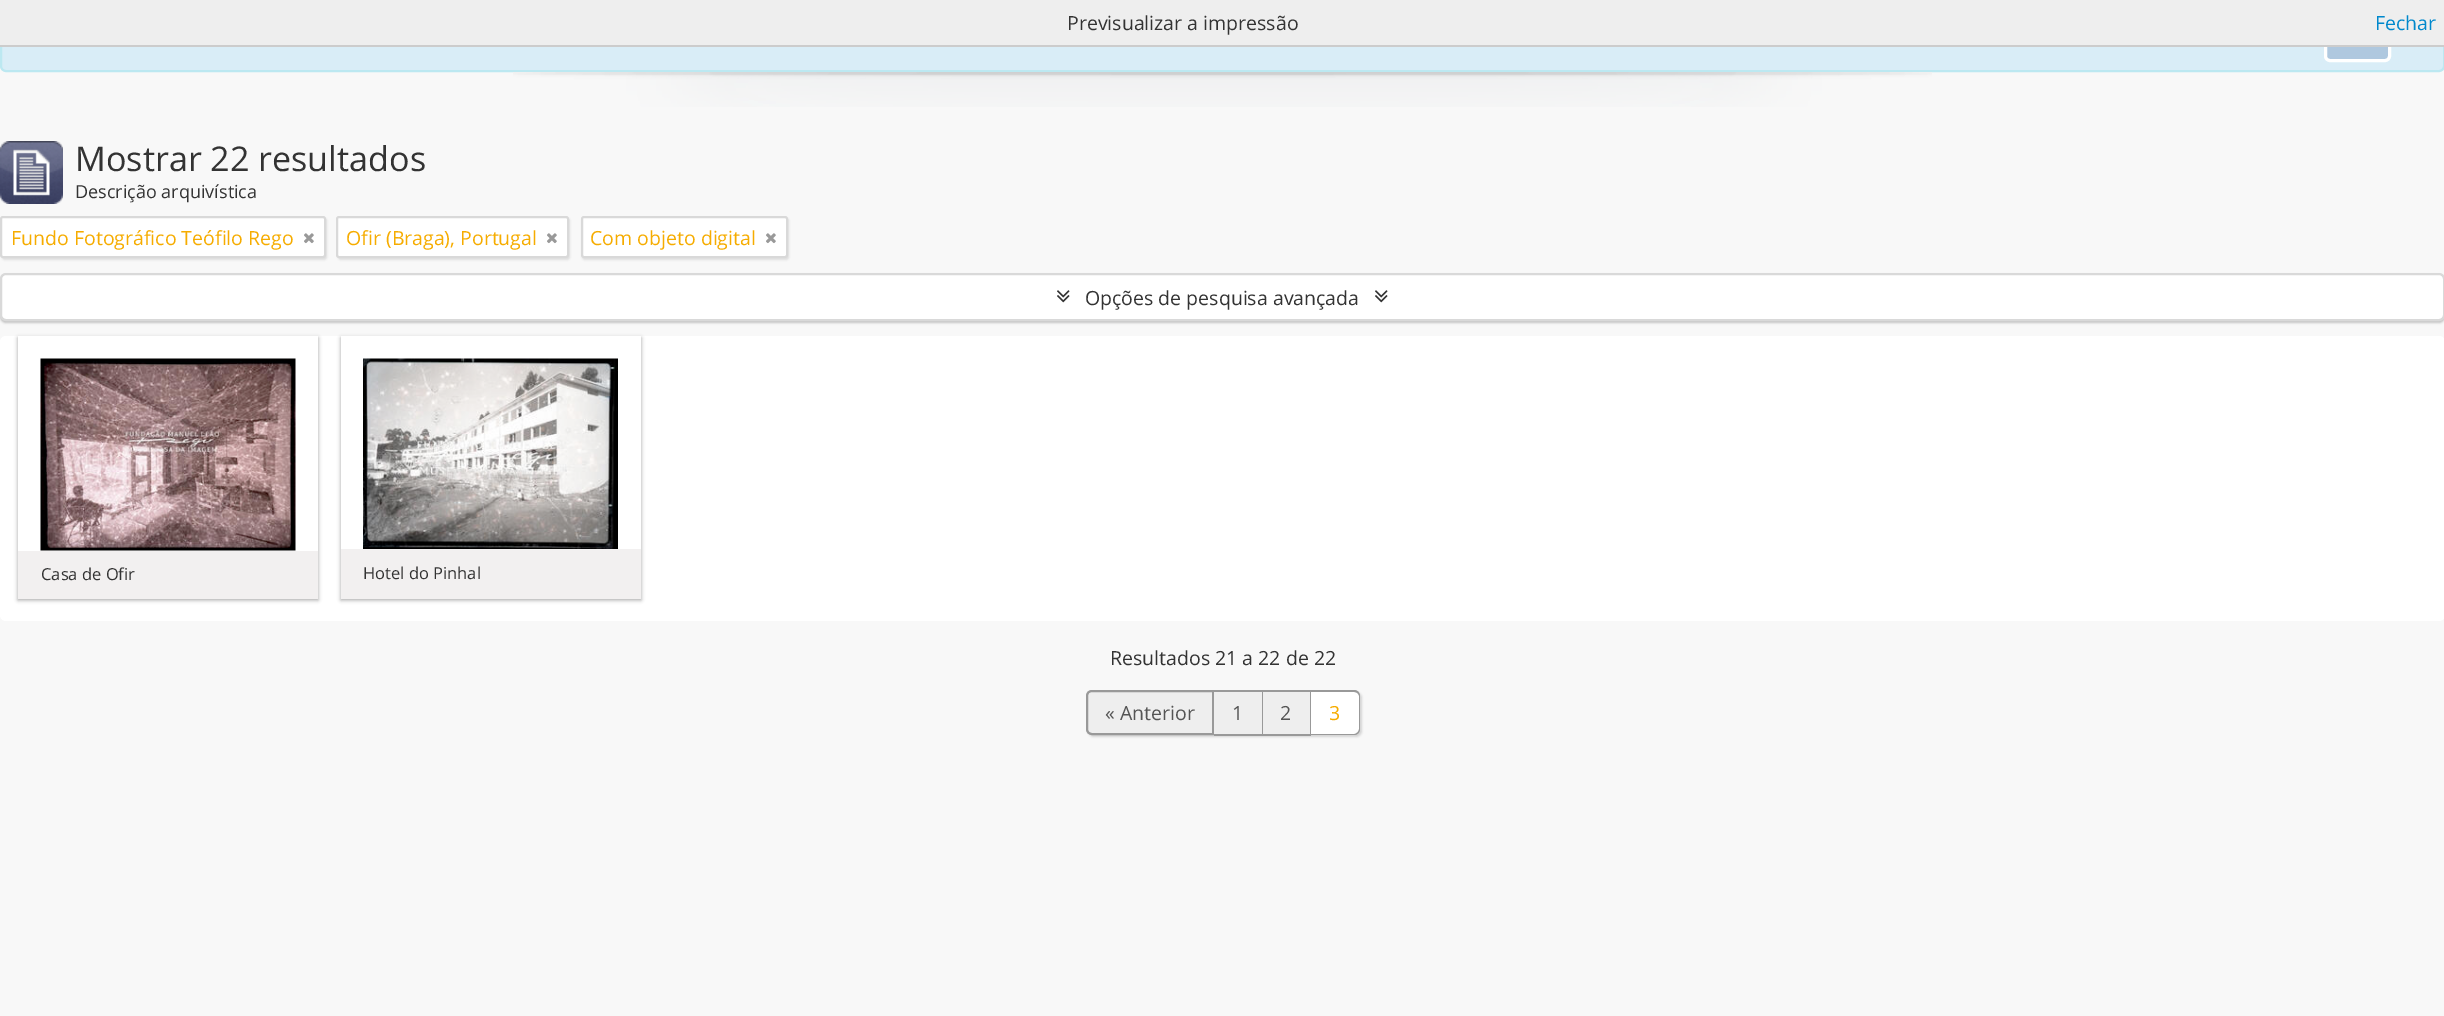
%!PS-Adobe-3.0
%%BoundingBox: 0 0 2444 1016
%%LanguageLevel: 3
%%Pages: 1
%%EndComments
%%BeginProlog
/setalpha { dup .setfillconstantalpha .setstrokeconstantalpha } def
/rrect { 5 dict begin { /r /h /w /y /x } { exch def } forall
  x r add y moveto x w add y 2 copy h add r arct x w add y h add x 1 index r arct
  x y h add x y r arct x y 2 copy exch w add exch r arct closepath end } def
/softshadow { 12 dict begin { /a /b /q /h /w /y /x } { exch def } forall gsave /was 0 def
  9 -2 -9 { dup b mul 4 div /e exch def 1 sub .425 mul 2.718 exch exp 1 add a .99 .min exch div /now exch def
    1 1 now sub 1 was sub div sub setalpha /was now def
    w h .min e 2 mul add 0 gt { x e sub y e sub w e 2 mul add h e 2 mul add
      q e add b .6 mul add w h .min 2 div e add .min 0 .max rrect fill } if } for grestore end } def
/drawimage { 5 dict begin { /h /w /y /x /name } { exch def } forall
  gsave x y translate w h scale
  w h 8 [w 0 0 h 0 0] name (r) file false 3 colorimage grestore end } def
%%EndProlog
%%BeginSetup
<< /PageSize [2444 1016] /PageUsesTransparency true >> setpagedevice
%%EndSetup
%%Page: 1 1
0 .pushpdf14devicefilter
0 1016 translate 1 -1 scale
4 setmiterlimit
0.973 setgray
0 0 2444 1016 rectfill
0.851 0.929 0.969 setrgbcolor
1 1 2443 70 5 rrect gsave fill grestore
0.737 0.91 0.945 setrgbcolor
2 setlinewidth
stroke
0.686 0.784 0.875 setrgbcolor
2325.5 15.5 64 45 4.5 rrect gsave fill grestore
1 setgray
3 setlinewidth
stroke
(images/1.raw) 513 72 1419 35 drawimage
0.933 setgray
0 0 2444 45 rectfill
0.8 setgray
0 45 2444 2 rectfill
(images/2.raw) 0 141 63 63 drawimage
0 setgray
2 218 325 42 3 1 0.1 softshadow
1 setgray
1 217 324 40 2 rrect gsave fill grestore
0.851 setgray
2 setlinewidth
stroke
(images/3.raw) 304 233 10 11 drawimage
0 setgray
338 218 232 42 3 1 0.1 softshadow
1 setgray
337 217 231 40 2 rrect gsave fill grestore
0.851 setgray
stroke
(images/3.raw) 547 233 10 11 drawimage
0 setgray
582 218 207 42 3 1 0.1 softshadow
1 setgray
582 217 205 40 2 rrect gsave fill grestore
0.851 setgray
stroke
(images/3.raw) 766 233 10 11 drawimage
0 setgray
0 275 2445 48 6 1 0.2 softshadow
1 setgray
1 274 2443 46 5 rrect gsave fill grestore
0.851 setgray
stroke
(images/4.raw) 1057 290 13 13 drawimage
(images/4.raw) 1375 290 13 13 drawimage
1 setgray
0 336 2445 285 6 rrect fill
0.098 setgray
18 338 300 262 0 2 0.4 softshadow
1 setgray
18 336 300 215 rectfill
(images/5.raw) 40 358 256 193 drawimage
0.949 0.941 0.941 setrgbcolor
18 551 300 48 rectfill
0.098 setgray
341 338 300 262 0 2 0.4 softshadow
1 setgray
341 336 300 213 rectfill
(images/6.raw) 363 358 255 191 drawimage
0.949 0.941 0.941 setrgbcolor
341 549 300 50 rectfill
0.098 setgray
1088 692 274 45 6 1 0.15 softshadow
0.933 setgray
newpath 1092 691 moveto 1213 691 lineto 1213 734 lineto 1092 734 lineto 1089 734 1087 732 1087 729 curveto 1087 696 lineto 1087 693 1089 691 1092 691 curveto closepath gsave fill grestore
0.6 setgray
stroke
0.933 setgray
1214 692 48 42 rectfill
0.6 setgray
1214 690 97 2 rectfill
1262 690 1 45 rectfill
1214 734 49 2 rectfill
0.933 setgray
1263 692 47 42 rectfill
0.6 setgray
1310 690 1 45 rectfill
1263 734 48 2 rectfill
1 setgray
newpath 1311 692 moveto 1354 692 lineto 1357 692 1359 694 1359 697 curveto 1359 729 lineto 1359 732 1357 734 1354 734 curveto 1311 734 lineto closepath fill
0.6 setgray
newpath 1311 690 moveto 1354 690 lineto 1358 690 1360 693 1360 696 curveto 1360 729 lineto 1360 732 1358 735 1354 735 curveto 1311 735 lineto closepath 1311 692 moveto 1354 692 lineto 1357 692 1359 694 1359 696 curveto 1359 729 lineto 1359 731 1357 734 1354 734 curveto 1311 734 lineto closepath eofill
/OpenSans-Regular [19.5 0 0 -19.5 0 0] selectfont
0.2 setgray
1067 30 moveto (Previsualizar a impressão) show
0 0.533 0.8 setrgbcolor
2375 30 moveto (Fechar) show
/OpenSans-Regular [34.1 0 0 -34.1 0 0] selectfont
0.2 setgray
75 171 moveto (Mostrar 22 resultados) show
/OpenSans-Regular [18 0 0 -18 0 0] selectfont
75 198 moveto (Descrição arquivística) show
/OpenSans-Regular [19.5 0 0 -19.5 0 0] selectfont
0.965 0.675 0 setrgbcolor
11 245 moveto (Fundo Fotográfico Teófilo Rego) show
346 245 moveto (Ofir \(Braga\), Portugal) show
590 245 moveto (Com objeto digital) show
0.2 setgray
1085 305 moveto (Opções de pesquisa avançada) show
/OpenSans-Regular [16.5 0 0 -16.5 0 0] selectfont
41 580 moveto (Casa de Ofir) show
363 579 moveto (Hotel do Pinhal) show
/OpenSans-Regular [19.5 0 0 -19.5 0 0] selectfont
1110 665 moveto (Resultados 21 a 22 de 22) show
0.333 setgray
1105 720 moveto (« Anterior) show
1232 720 moveto (1) show
1280 720 moveto (2) show
0.965 0.675 0 setrgbcolor
1329 720 moveto (3) show
.poppdf14devicefilter showpage
%%EOF
